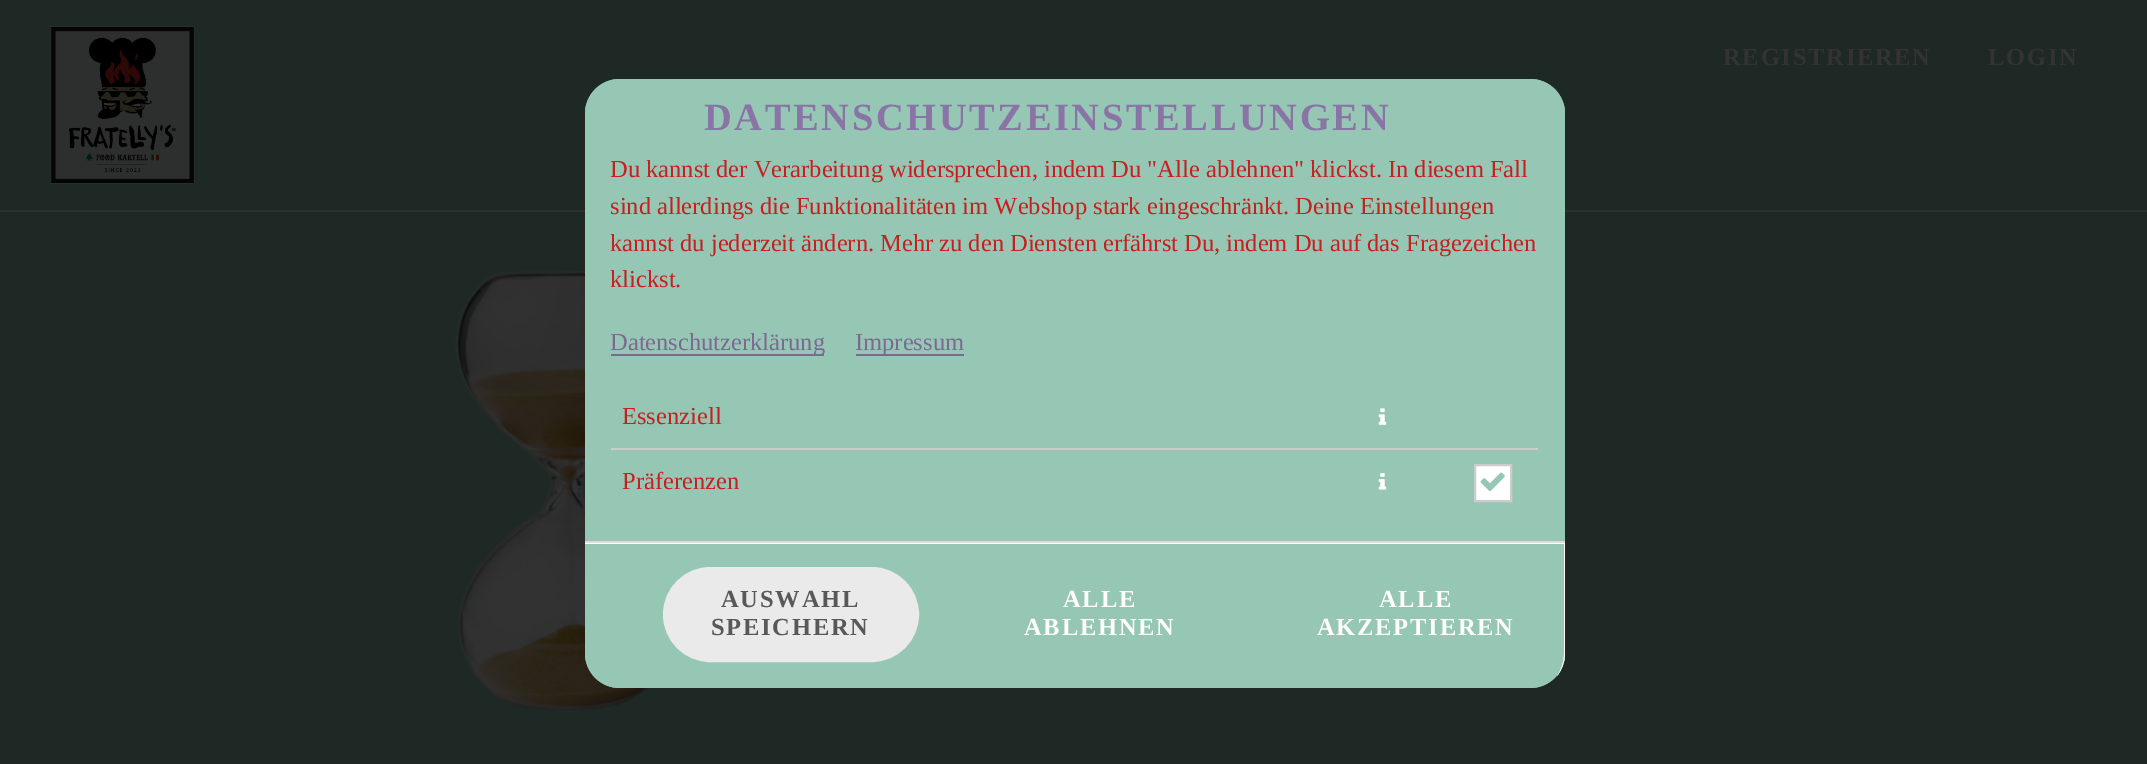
%!PS-Adobe-3.0
%%BoundingBox: 0 0 2147 764
%%LanguageLevel: 3
%%Pages: 1
%%EndComments
%%BeginProlog
/rrect { 5 dict begin { /r /h /w /y /x } { exch def } forall
  x r add y moveto x w add y 2 copy h add r arct x w add y h add x 1 index r arct
  x y h add x y r arct x y 2 copy exch w add exch r arct closepath end } def
/drawimage { 5 dict begin { /h /w /y /x /name } { exch def } forall
  gsave x y translate w h scale
  w h 8 [w 0 0 h 0 0] name (r) file false 3 colorimage grestore end } def
%%EndProlog
%%BeginSetup
<< /PageSize [2147 764] >> setpagedevice
%%EndSetup
%%Page: 1 1
0 764 translate 1 -1 scale
4 setmiterlimit
0.118 0.157 0.141 setrgbcolor
0 0 2147 764 rectfill
0.184 setgray
0 210 2147 2 rectfill
(images/1.raw) 50 26 145 158 drawimage
(images/2.raw) 454 269 195 442 drawimage
0.588 0.78 0.71 setrgbcolor
585 79 980 609 35 rrect fill
newpath 620 79 moveto 1530 79 lineto 1549.5 79 1565 94.5 1565 114 curveto 1565 159 lineto 585 159 lineto 585 114 lineto 585 94.5 600.5 79 620 79 curveto closepath fill
0.482 0.412 0.569 setrgbcolor
611 354 213 2 rectfill
856 354 108 2 rectfill
0.8 setgray
611 448 927 2 rectfill
(images/3.raw) 1378 408 9 17 drawimage
(images/4.raw) 1378 473 9 17 drawimage
1 setgray
newpath 1475 465 moveto 1511 465 lineto 1511 501 lineto 1475 501 lineto closepath gsave fill grestore
0.8 setgray
2 setlinewidth
stroke
(images/5.raw) 1480 472 25 19 drawimage
0.588 0.78 0.71 setrgbcolor
newpath 585 541 moveto 1565 541 lineto 1565 653 lineto 1565 672.5 1549.5 688 1530 688 curveto 620 688 lineto 600.5 688 585 672.5 585 653 curveto closepath fill
1 setgray
newpath 585 543 moveto 585 544 lineto 1564 544 lineto 1564 654 lineto 1564 662 1561 670 1557 676 curveto 1562 670 1565 662 1565 653 curveto 1565 543 lineto closepath fill
0.867 setgray
585 541 980 2 rectfill
0.918 setgray
664 568 254 93 46.5 rrect gsave fill grestore
stroke
/LiberationSerif-Bold [24.5 0 0 -24.5 0 0] selectfont
0.2 setgray
1723 65 moveto 1.75 0 (REGISTRIEREN) ashow
1988 65 moveto 1.75 0 (LOGIN) ashow
/LiberationSerif-Bold [38.5 0 0 -38.5 0 0] selectfont
0.541 0.451 0.647 setrgbcolor
704 130 moveto 2.6 0 (DATENSCHUTZEINSTELLUNGEN) ashow
/LiberationSerif-Regular [24.5 0 0 -24.5 0 0] selectfont
0.784 0.118 0.118 setrgbcolor
610 177 moveto (Du kannst der Verarbeitung widersprechen, indem Du "Alle ablehnen" klickst. In diesem Fall) show
610 214 moveto (sind allerdings die Funktionalitäten im Webshop stark eingeschränkt. Deine Einstellungen) show
610 251 moveto (kannst du jederzeit ändern. Mehr zu den Diensten erfährst Du, indem Du auf das Fragezeichen) show
610 287 moveto (klickst.) show
0.482 0.412 0.569 setrgbcolor
610 350 moveto (Datenschutzerklärung) show
855 350 moveto (Impressum) show
0.784 0.118 0.118 setrgbcolor
622 424 moveto (Essenziell) show
622 489 moveto (Präferenzen) show
/LiberationSerif-Bold [24.5 0 0 -24.5 0 0] selectfont
0.345 setgray
721 607 moveto 1.75 0 (AUSWAHL) ashow
711 635 moveto 1.75 0 (SPEICHERN) ashow
1 setgray
1063 607 moveto 1.75 0 (ALLE) ashow
1024 635 moveto 1.75 0 (ABLEHNEN) ashow
1379 607 moveto 1.75 0 (ALLE) ashow
1317 635 moveto 1.75 0 (AKZEPTIEREN) ashow
showpage
%%EOF
